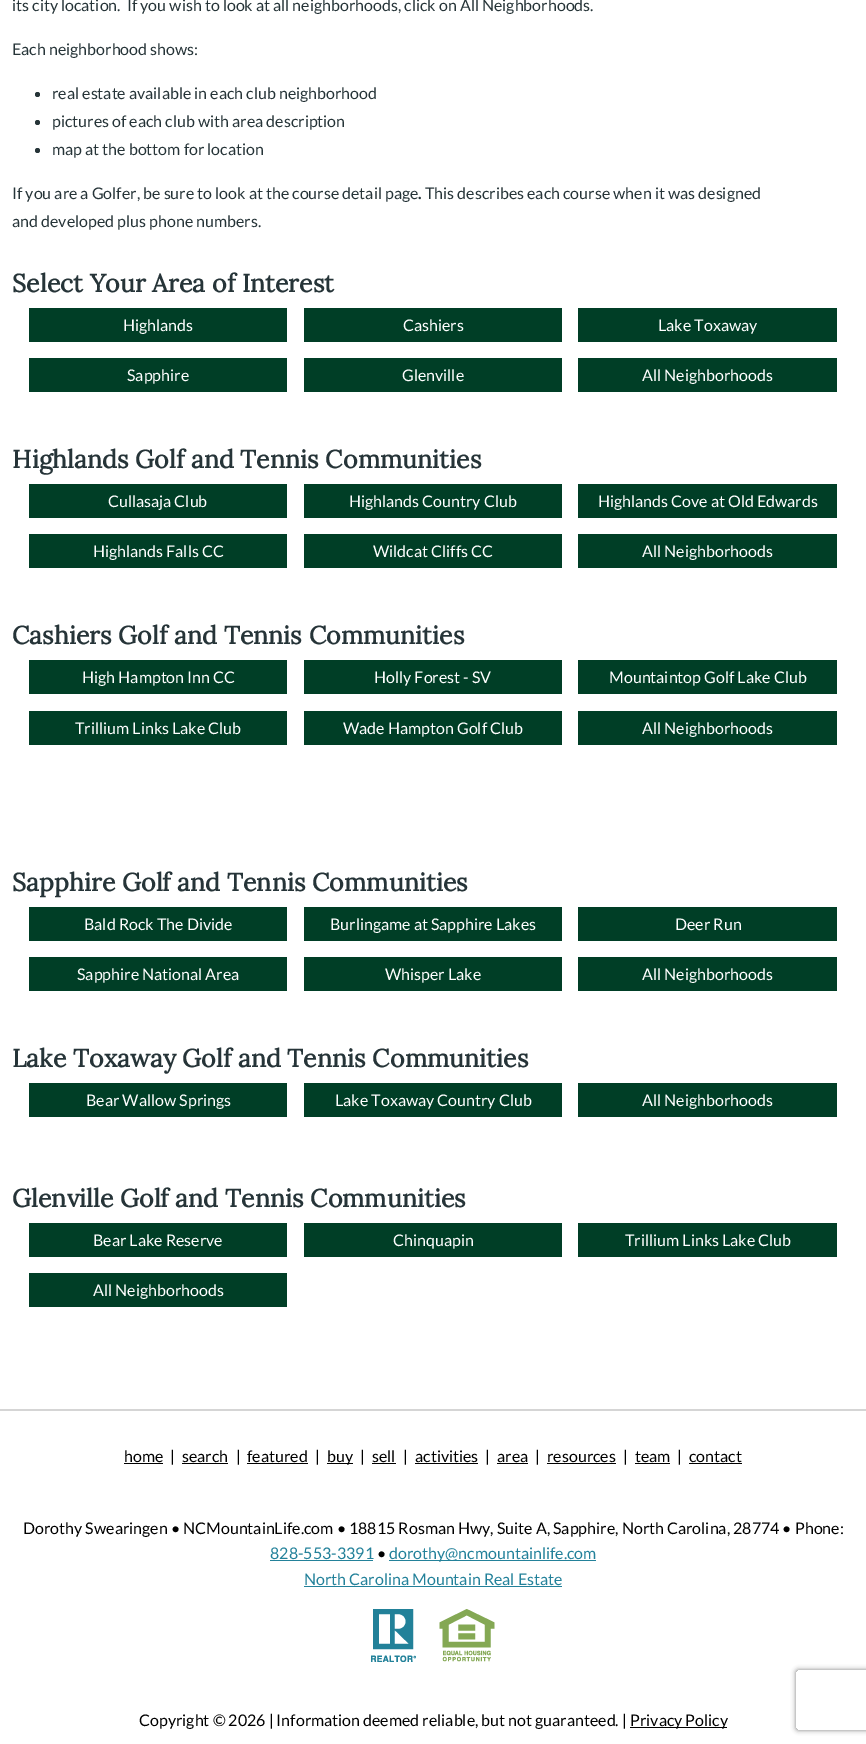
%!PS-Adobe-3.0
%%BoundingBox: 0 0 866 1744
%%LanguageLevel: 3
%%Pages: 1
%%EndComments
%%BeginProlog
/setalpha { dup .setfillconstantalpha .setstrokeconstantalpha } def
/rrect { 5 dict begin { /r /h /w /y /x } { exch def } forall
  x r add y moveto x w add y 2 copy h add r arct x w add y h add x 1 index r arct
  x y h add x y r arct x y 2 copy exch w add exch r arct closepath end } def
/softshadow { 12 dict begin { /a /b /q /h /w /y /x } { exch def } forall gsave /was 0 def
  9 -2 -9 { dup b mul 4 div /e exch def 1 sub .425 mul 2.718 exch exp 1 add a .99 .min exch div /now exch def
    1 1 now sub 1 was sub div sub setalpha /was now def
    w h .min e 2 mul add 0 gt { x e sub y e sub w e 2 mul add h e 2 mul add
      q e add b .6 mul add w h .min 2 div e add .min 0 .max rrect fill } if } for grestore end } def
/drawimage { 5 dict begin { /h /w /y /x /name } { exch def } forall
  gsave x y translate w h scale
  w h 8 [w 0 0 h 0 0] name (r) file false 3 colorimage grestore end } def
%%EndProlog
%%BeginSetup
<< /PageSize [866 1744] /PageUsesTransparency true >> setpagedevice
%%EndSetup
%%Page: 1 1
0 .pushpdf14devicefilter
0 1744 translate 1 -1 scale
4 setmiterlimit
1 setgray
0 0 866 1744 rectfill
0.149 0.204 0.22 setrgbcolor
newpath 37.5 94.5 2.5 0 360 arc closepath fill
newpath 37.5 122.5 2.5 0 360 arc closepath fill
newpath 37.5 150.5 2.5 0 360 arc closepath fill
0 0.243 0.149 setrgbcolor
29 308 258 34 rectfill
304 308 258 34 rectfill
578 308 259 34 rectfill
29 358 258 34 rectfill
304 358 258 34 rectfill
578 358 259 34 rectfill
29 484 258 34 rectfill
304 484 258 34 rectfill
578 484 259 34 rectfill
29 534 258 34 rectfill
304 534 258 34 rectfill
578 534 259 34 rectfill
29 660 258 34 rectfill
304 660 258 34 rectfill
578 660 259 34 rectfill
29 711 258 34 rectfill
304 711 258 34 rectfill
578 711 259 34 rectfill
29 907 258 34 rectfill
304 907 258 34 rectfill
578 907 259 34 rectfill
29 957 258 34 rectfill
304 957 258 34 rectfill
578 957 259 34 rectfill
29 1083 258 34 rectfill
304 1083 258 34 rectfill
578 1083 259 34 rectfill
29 1223 258 34 rectfill
304 1223 258 34 rectfill
578 1223 259 34 rectfill
29 1273 258 34 rectfill
0.835 setgray
0 1409 866 2 rectfill
0 setgray
124 1463 39 1 rectfill
182 1463 46 1 rectfill
247 1463 61 1 rectfill
327 1463 26 1 rectfill
372 1463 24 1 rectfill
415 1463 63 1 rectfill
497 1463 31 1 rectfill
547 1463 69 1 rectfill
635 1463 35 1 rectfill
689 1463 53 1 rectfill
0.137 0.506 0.604 setrgbcolor
270 1560 103 1 rectfill
389 1560 207 1 rectfill
304 1586 258 1 rectfill
(images/1.raw) 371 1609 45 53 drawimage
(images/2.raw) 439 1609 56 53 drawimage
0 setgray
630 1727 97 1 rectfill
gsave
newpath 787 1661 moveto 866 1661 lineto 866 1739 lineto 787 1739 lineto closepath 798 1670 moveto 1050 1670 lineto 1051 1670 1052 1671 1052 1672 curveto 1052 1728 lineto 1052 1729 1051 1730 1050 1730 curveto 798 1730 lineto 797 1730 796 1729 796 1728 curveto 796 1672 lineto 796 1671 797 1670 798 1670 curveto closepath eoclip newpath
0.502 setgray
796 1670 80 60 2 2.5 1 softshadow
grestore
/Lato-Regular [16 0 0 -16 0 0] selectfont
0.149 0.204 0.22 setrgbcolor
12 11 moveto (its city location.  If you wish to look at all neighborhoods, click on All Neighborhoods.) show
12 55 moveto (Each neighborhood shows:) show
52 99 moveto (real estate available in each club neighborhood) show
52 127 moveto (pictures of each club with area description) show
52 155 moveto (map at the bottom for location) show
12 199 moveto (If you are a Golfer, be sure to look at the course detail page) show
/Lato-Bold [16 0 0 -16 0 0] selectfont
418 199 moveto (.) show
/Lato-Regular [16 0 0 -16 0 0] selectfont
425 199 moveto (This describes each course when it was designed) show
12 227 moveto (and developed plus phone numbers.) show
/Lora-Bold [25 0 0 -25 0 0] selectfont
12 292 moveto (Select Your Area of Interest) show
/Lato-Regular [16 0 0 -16 0 0] selectfont
1 setgray
123 331 moveto (Highlands) show
403 331 moveto (Cashiers) show
658 331 moveto (Lake Toxaway) show
127 381 moveto (Sapphire) show
402 381 moveto (Glenville) show
642 381 moveto (All Neighborhoods) show
/Lora-Bold [25 0 0 -25 0 0] selectfont
0.149 0.204 0.22 setrgbcolor
12 468 moveto (Highlands Golf and Tennis Communities) show
/Lato-Regular [16 0 0 -16 0 0] selectfont
1 setgray
108 507 moveto (Cullasaja Club) show
349 507 moveto (Highlands Country Club) show
598 507 moveto (Highlands Cove at Old Edwards) show
93 557 moveto (Highlands Falls CC) show
373 557 moveto (Wildcat Cliffs CC) show
642 557 moveto (All Neighborhoods) show
/Lora-Bold [25 0 0 -25 0 0] selectfont
0.149 0.204 0.22 setrgbcolor
12 644 moveto (Cashiers Golf and Tennis Communities) show
/Lato-Regular [16 0 0 -16 0 0] selectfont
1 setgray
82 683 moveto (High Hampton Inn CC) show
374 683 moveto (Holly Forest - SV) show
609 683 moveto (Mountaintop Golf Lake Club) show
75 734 moveto (Trillium Links Lake Club) show
343 734 moveto (Wade Hampton Golf Club) show
642 734 moveto (All Neighborhoods) show
/Lora-Bold [25 0 0 -25 0 0] selectfont
0.149 0.204 0.22 setrgbcolor
12 891 moveto (Sapphire Golf and Tennis Communities) show
/Lato-Regular [16 0 0 -16 0 0] selectfont
1 setgray
84 930 moveto (Bald Rock The Divide) show
330 930 moveto (Burlingame at Sapphire Lakes) show
675 930 moveto (Deer Run) show
77 980 moveto (Sapphire National Area) show
385 980 moveto (Whisper Lake) show
642 980 moveto (All Neighborhoods) show
/Lora-Bold [25 0 0 -25 0 0] selectfont
0.149 0.204 0.22 setrgbcolor
12 1067 moveto (Lake Toxaway Golf and Tennis Communities) show
/Lato-Regular [16 0 0 -16 0 0] selectfont
1 setgray
86 1106 moveto (Bear Wallow Springs) show
335 1106 moveto (Lake Toxaway Country Club) show
642 1106 moveto (All Neighborhoods) show
/Lora-Bold [25 0 0 -25 0 0] selectfont
0.149 0.204 0.22 setrgbcolor
12 1207 moveto (Glenville Golf and Tennis Communities) show
/Lato-Regular [16 0 0 -16 0 0] selectfont
1 setgray
93 1246 moveto (Bear Lake Reserve) show
393 1246 moveto (Chinquapin) show
625 1246 moveto (Trillium Links Lake Club) show
93 1296 moveto (All Neighborhoods) show
0 setgray
124 1462 moveto (home) show
170 1462 moveto (|) show
182 1462 moveto (search) show
236 1462 moveto (|) show
247 1462 moveto (featured) show
315 1462 moveto (|) show
327 1462 moveto (buy) show
360 1462 moveto (|) show
372 1462 moveto (sell) show
403 1462 moveto (|) show
415 1462 moveto (activities) show
485 1462 moveto (|) show
497 1462 moveto (area) show
535 1462 moveto (|) show
547 1462 moveto (resources) show
623 1462 moveto (|) show
635 1462 moveto (team) show
677 1462 moveto (|) show
689 1462 moveto (contact) show
23 1534 moveto (Dorothy Swearingen • NCMountainLife.com • 18815 Rosman Hwy, Suite A, Sapphire, North Carolina, 28774 • Phone:) show
0.137 0.506 0.604 setrgbcolor
270 1559 moveto (828-553-3391) show
0 setgray
377 1559 moveto (•) show
0.137 0.506 0.604 setrgbcolor
389 1559 moveto (dorothy@ncmountainlife.com) show
304 1585 moveto (North Carolina Mountain Real Estate) show
0 setgray
139 1726 moveto (Copyright © 2026 | Information deemed reliable, but not guaranteed. |) show
630 1726 moveto (Privacy Policy) show
.poppdf14devicefilter showpage
%%EOF
